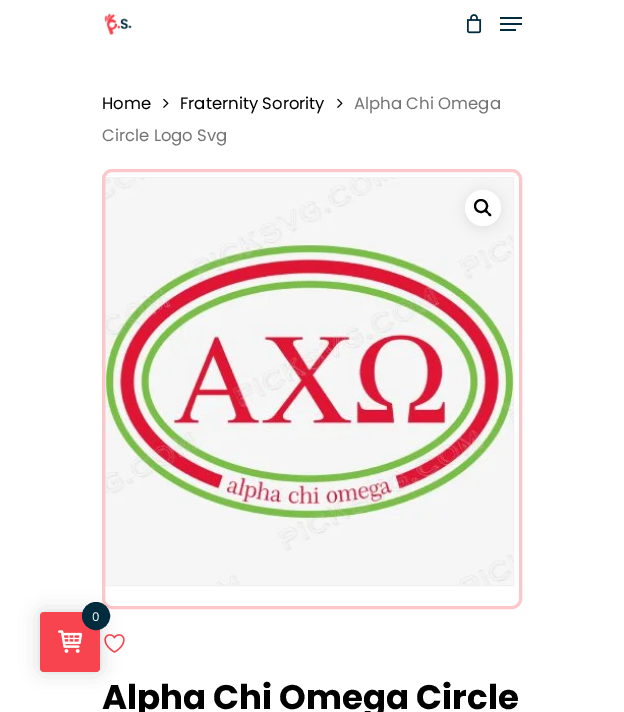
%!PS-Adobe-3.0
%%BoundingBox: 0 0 624 712
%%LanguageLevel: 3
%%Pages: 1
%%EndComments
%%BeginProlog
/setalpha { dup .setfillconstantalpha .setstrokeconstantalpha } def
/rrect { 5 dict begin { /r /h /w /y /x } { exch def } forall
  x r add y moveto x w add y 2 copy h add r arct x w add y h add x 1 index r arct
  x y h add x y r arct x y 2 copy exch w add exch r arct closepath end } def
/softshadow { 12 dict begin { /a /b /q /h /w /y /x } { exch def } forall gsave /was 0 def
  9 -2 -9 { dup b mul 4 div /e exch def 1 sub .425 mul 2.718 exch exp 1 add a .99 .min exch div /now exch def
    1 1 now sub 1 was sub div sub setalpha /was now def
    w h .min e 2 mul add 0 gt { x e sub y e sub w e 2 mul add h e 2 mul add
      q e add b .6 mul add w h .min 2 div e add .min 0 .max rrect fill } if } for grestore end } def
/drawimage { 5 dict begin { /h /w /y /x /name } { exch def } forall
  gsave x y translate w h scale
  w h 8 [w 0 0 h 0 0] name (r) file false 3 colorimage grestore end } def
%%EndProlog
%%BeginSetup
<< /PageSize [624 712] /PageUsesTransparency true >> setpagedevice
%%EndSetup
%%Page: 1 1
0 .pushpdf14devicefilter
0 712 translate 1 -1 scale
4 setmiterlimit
1 setgray
0 0 624 712 rectfill
0.992 0.78 0.792 setrgbcolor
3 setlinewidth
103.5 170.5 417 437 8.5 rrect stroke
0.06 setalpha
0 setgray
1 setlinewidth
105.5 177.5 408 408 rectstroke
1 setalpha
(images/5.raw) 106 178 407 407 drawimage
(images/6.raw) 104 634 21 19 drawimage
40 612 60 60 4 10 0.15 softshadow
0.969 0.267 0.306 setrgbcolor
40 612 60 60 4 rrect fill
0 0.173 0.243 setrgbcolor
newpath 96 616 13.5 0 360 arc closepath gsave fill grestore
stroke
(images/1.raw) 58 630 25 23 drawimage
(images/2.raw) 104 13 28 22 drawimage
(images/3.raw) 467 14 15 20 drawimage
500 17 22 2 rectfill
500 29 16 2 rectfill
500 23 22 2 rectfill
(images/4.raw) 163 98 6 10 drawimage
(images/4.raw) 337 98 6 10 drawimage
0 setgray
465 192 36 36 18 6 0.08 softshadow
1 setgray
newpath 483 208 18 0 360 arc closepath fill
0 setgray
2 setlinewidth
newpath 481 206 6 0 360 arc closepath stroke
newpath 485 210 moveto 486.5 209 488 211.5 488.5 212.5 curveto 489.5 213 492 214.5 491 216 curveto 489.5 217 488 214.5 487.5 213.5 curveto 486.5 213 484 211.5 485 210 curveto closepath fill
/Poppins-Regular [12 0 0 -12 0 0] selectfont
1 setgray
92 621 moveto (0) show
/Poppins-Regular [16.5 0 0 -16.5 0 0] selectfont
0 setgray
102 109 moveto (Home) show
180 109 moveto (Fraternity Sorority) show
0.451 setgray
354 109 moveto (Alpha Chi Omega) show
102 141 moveto (Circle Logo Svg) show
/Poppins-Bold [34 0 0 -34 0 0] selectfont
0 setgray
102 709 moveto (Alpha Chi Omega Circle) show
.poppdf14devicefilter showpage
%%EOF
